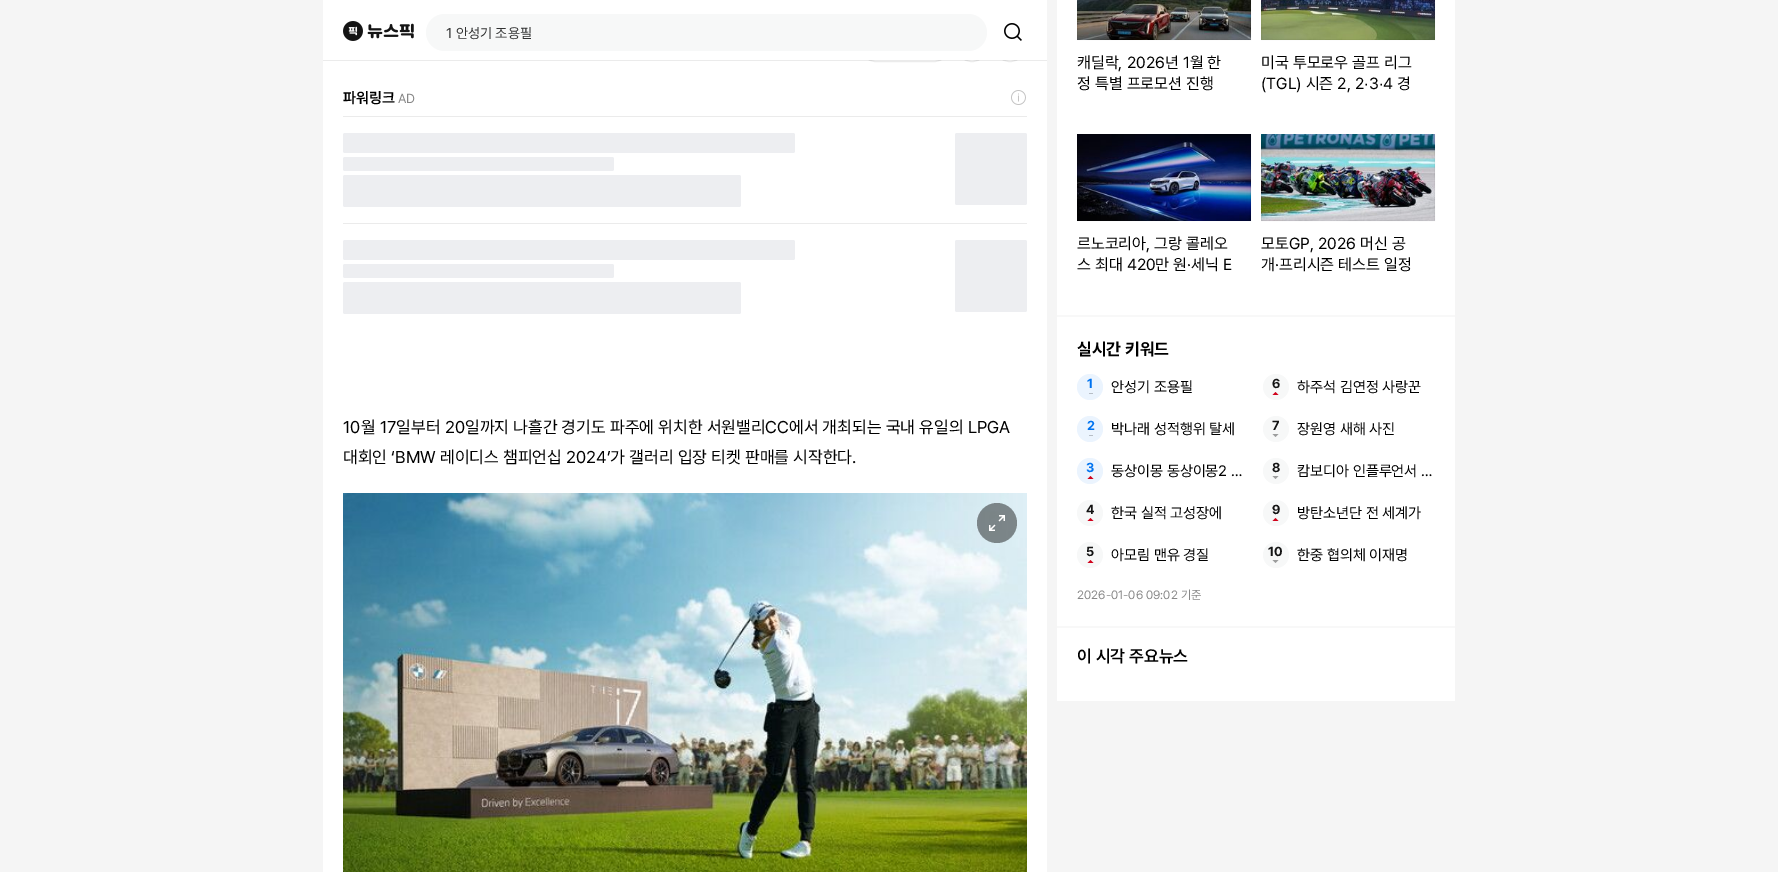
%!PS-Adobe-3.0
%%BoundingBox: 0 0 1778 872
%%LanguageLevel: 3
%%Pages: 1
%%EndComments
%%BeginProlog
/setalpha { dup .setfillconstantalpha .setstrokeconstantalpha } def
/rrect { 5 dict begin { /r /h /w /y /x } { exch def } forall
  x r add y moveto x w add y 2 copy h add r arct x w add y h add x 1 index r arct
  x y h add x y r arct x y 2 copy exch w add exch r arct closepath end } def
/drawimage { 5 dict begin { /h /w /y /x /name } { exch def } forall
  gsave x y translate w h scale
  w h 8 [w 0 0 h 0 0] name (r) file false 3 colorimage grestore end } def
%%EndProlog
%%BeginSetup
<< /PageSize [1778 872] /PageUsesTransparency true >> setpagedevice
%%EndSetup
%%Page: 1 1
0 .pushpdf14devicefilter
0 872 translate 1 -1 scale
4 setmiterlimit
0.961 setgray
0 0 1778 872 rectfill
1 setgray
323 60 724 812 rectfill
0.922 setgray
859.5 28.5 91 33 16.5 rrect stroke
newpath 972 45 16.5 0 360 arc closepath stroke
newpath 1010 45 16.5 0 360 arc closepath stroke
0.08 setalpha
0 setgray
323 60 724 1 rectfill
1 setalpha
1 setgray
323 0 724 60 rectfill
(images/1.raw) 343 21 71 20 drawimage
0.969 0.973 0.973 setrgbcolor
426 14 561 37 18.5 rrect fill
(images/2.raw) 1004 23 18 18 drawimage
0.922 setgray
343 116 684 1 rectfill
(images/3.raw) 1011 90 15 15 drawimage
0.929 0.933 0.945 setrgbcolor
343 133 452 20 2 rrect fill
343 157 271 14 2 rrect fill
343 175 398 32 2 rrect fill
955 133 72 72 2 rrect fill
0.922 setgray
343 223 684 1 rectfill
0.929 0.933 0.945 setrgbcolor
343 240 452 20 2 rrect fill
343 264 271 14 2 rrect fill
343 282 398 32 2 rrect fill
955 240 72 72 2 rrect fill
(images/4.raw) 343 493 684 379 drawimage
0.48 setalpha
0.078 setgray
newpath 997 523 20 0 360 arc closepath fill
1 setalpha
(images/5.raw) 989 515 16 16 drawimage
1 setgray
1057 0 398 701 rectfill
0.973 setgray
1057 315 398 2 rectfill
(images/6.raw) 1077 0 174 40 drawimage
0.04 setalpha
0 setgray
1077.5 -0.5 173 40 rectstroke
1 setalpha
(images/7.raw) 1261 0 174 40 drawimage
0.04 setalpha
1261.5 -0.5 173 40 rectstroke
1 setalpha
(images/8.raw) 1077 134 174 87 drawimage
0.04 setalpha
1077.5 134.5 173 86 rectstroke
1 setalpha
(images/9.raw) 1261 134 174 87 drawimage
0.04 setalpha
1261.5 134.5 173 86 rectstroke
1 setalpha
0.973 setgray
1057 626 398 2 rectfill
0.922 0.957 0.996 setrgbcolor
newpath 1090 387 13 0 360 arc closepath fill
0.718 0.745 0.776 setrgbcolor
1089 393 4 1 rectfill
0.969 0.973 0.973 setrgbcolor
newpath 1276 387 13 0 360 arc closepath fill
0.816 0.008 0.106 setrgbcolor
newpath 1275.5 392 moveto 1278.5 395 lineto 1272.5 395 lineto closepath fill
0.922 0.957 0.996 setrgbcolor
newpath 1090 429 13 0 360 arc closepath fill
0.718 0.745 0.776 setrgbcolor
1089 435 4 1 rectfill
0.969 0.973 0.973 setrgbcolor
newpath 1276 429 13 0 360 arc closepath fill
0.612 0.616 0.616 setrgbcolor
newpath 1275.5 437 moveto 1272.5 434 lineto 1278.5 434 lineto closepath fill
0.922 0.957 0.996 setrgbcolor
newpath 1090 471 13 0 360 arc closepath fill
0.816 0.008 0.106 setrgbcolor
newpath 1090.5 476 moveto 1093.5 479 lineto 1087.5 479 lineto closepath fill
0.969 0.973 0.973 setrgbcolor
newpath 1276 471 13 0 360 arc closepath fill
0.612 0.616 0.616 setrgbcolor
newpath 1275.5 479 moveto 1272.5 476 lineto 1278.5 476 lineto closepath fill
0.969 0.973 0.973 setrgbcolor
newpath 1090 513 13 0 360 arc closepath fill
0.816 0.008 0.106 setrgbcolor
newpath 1090.5 518 moveto 1093.5 521 lineto 1087.5 521 lineto closepath fill
0.969 0.973 0.973 setrgbcolor
newpath 1276 513 13 0 360 arc closepath fill
0.816 0.008 0.106 setrgbcolor
newpath 1275.5 518 moveto 1278.5 521 lineto 1272.5 521 lineto closepath fill
0.969 0.973 0.973 setrgbcolor
newpath 1090 555 13 0 360 arc closepath fill
0.816 0.008 0.106 setrgbcolor
newpath 1090.5 560 moveto 1093.5 563 lineto 1087.5 563 lineto closepath fill
0.969 0.973 0.973 setrgbcolor
newpath 1276 555 13 0 360 arc closepath fill
0.612 0.616 0.616 setrgbcolor
newpath 1275.5 563 moveto 1272.5 560 lineto 1278.5 560 lineto closepath fill
/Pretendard-Regular [14 0 0 -14 0 0] selectfont
0.192 0.196 0.196 setrgbcolor
446 38 moveto (1 안성기 조용필) show
/Pretendard-SemiBold [15 0 0 -15 0 0] selectfont
0 setgray
343 103 moveto (파워링크) show
/Pretendard-Regular [13 0 0 -13 0 0] selectfont
0.533 setgray
398 103 moveto (AD) show
/Pretendard-Regular [17 0 0 -17 0 0] selectfont
0 setgray
343 433 moveto (10월 17일부터 20일까지 나흘간 경기도 파주에 위치한 서원밸리CC에서 개최되는 국내 유일의 LPGA) show
343 463 moveto (대회인 ‘BMW 레이디스 챔피언십 2024’가 갤러리 입장 티켓 판매를 시작한다.) show
/Pretendard-Regular [16 0 0 -16 0 0] selectfont
1077 68 moveto (캐딜락, 2026년 1월 한) show
1077 89 moveto (정 특별 프로모션 진행) show
1261 68 moveto (미국 투모로우 골프 리그) show
1261 89 moveto (\(TGL\) 시즌 2, 2) show
/LiberationSans-Regular [16 0 0 -16 0 0] selectfont
1364 89 moveto (∙) show
/Pretendard-Regular [16 0 0 -16 0 0] selectfont
1369 89 moveto (3) show
/LiberationSans-Regular [16 0 0 -16 0 0] selectfont
1379 89 moveto (∙) show
/Pretendard-Regular [16 0 0 -16 0 0] selectfont
1383 89 moveto (4 경) show
1077 249 moveto (르노코리아, 그랑 콜레오) show
1077 270 moveto (스 최대 420만 원·세닉 E) show
1261 249 moveto (모토GP, 2026 머신 공) show
1261 270 moveto (개·프리시즌 테스트 일정) show
/Pretendard-Bold [17 0 0 -17 0 0] selectfont
1077 355 moveto (실시간 키워드) show
/Pretendard-Bold [13 0 0 -13 0 0] selectfont
0 0.451 0.941 setrgbcolor
1087 388 moveto (1) show
/Pretendard-Regular [15 0 0 -15 0 0] selectfont
0 setgray
1111 392 moveto (안성기 조용필) show
/Pretendard-Bold [13 0 0 -13 0 0] selectfont
0.078 setgray
1272 388 moveto (6) show
/Pretendard-Regular [15 0 0 -15 0 0] selectfont
0 setgray
1297 392 moveto (하주석 김연정 사랑꾼) show
/Pretendard-Bold [13 0 0 -13 0 0] selectfont
0 0.451 0.941 setrgbcolor
1087 430 moveto (2) show
/Pretendard-Regular [15 0 0 -15 0 0] selectfont
0 setgray
1111 434 moveto (박나래 성적행위 탈세) show
/Pretendard-Bold [13 0 0 -13 0 0] selectfont
0.078 setgray
1272 430 moveto (7) show
/Pretendard-Regular [15 0 0 -15 0 0] selectfont
0 setgray
1297 434 moveto (장원영 새해 사진) show
/Pretendard-Bold [13 0 0 -13 0 0] selectfont
0 0.451 0.941 setrgbcolor
1086 472 moveto (3) show
/Pretendard-Regular [15 0 0 -15 0 0] selectfont
0 setgray
1111 476 moveto (동상이몽 동상이몽2 …) show
/Pretendard-Bold [13 0 0 -13 0 0] selectfont
0.078 setgray
1272 472 moveto (8) show
/Pretendard-Regular [15 0 0 -15 0 0] selectfont
0 setgray
1297 476 moveto (캄보디아 인플루언서 …) show
/Pretendard-Bold [13 0 0 -13 0 0] selectfont
0.078 setgray
1086 514 moveto (4) show
/Pretendard-Regular [15 0 0 -15 0 0] selectfont
0 setgray
1111 518 moveto (한국 실적 고성장에) show
/Pretendard-Bold [13 0 0 -13 0 0] selectfont
0.078 setgray
1272 514 moveto (9) show
/Pretendard-Regular [15 0 0 -15 0 0] selectfont
0 setgray
1297 518 moveto (방탄소년단 전 세계가) show
/Pretendard-Bold [13 0 0 -13 0 0] selectfont
0.078 setgray
1086 556 moveto (5) show
/Pretendard-Regular [15 0 0 -15 0 0] selectfont
0 setgray
1111 560 moveto (아모림 맨유 경질) show
/Pretendard-Bold [13 0 0 -13 0 0] selectfont
0.078 setgray
1268 556 moveto (10) show
/Pretendard-Regular [15 0 0 -15 0 0] selectfont
0 setgray
1297 560 moveto (한중 협의체 이재명) show
/Pretendard-Regular [12 0 0 -12 0 0] selectfont
0.533 setgray
1077 599 moveto (2026-01-06 09:02 기준) show
/Pretendard-SemiBold [17 0 0 -17 0 0] selectfont
0 setgray
1077 662 moveto (이 시각 주요뉴스) show
.poppdf14devicefilter showpage
%%EOF
